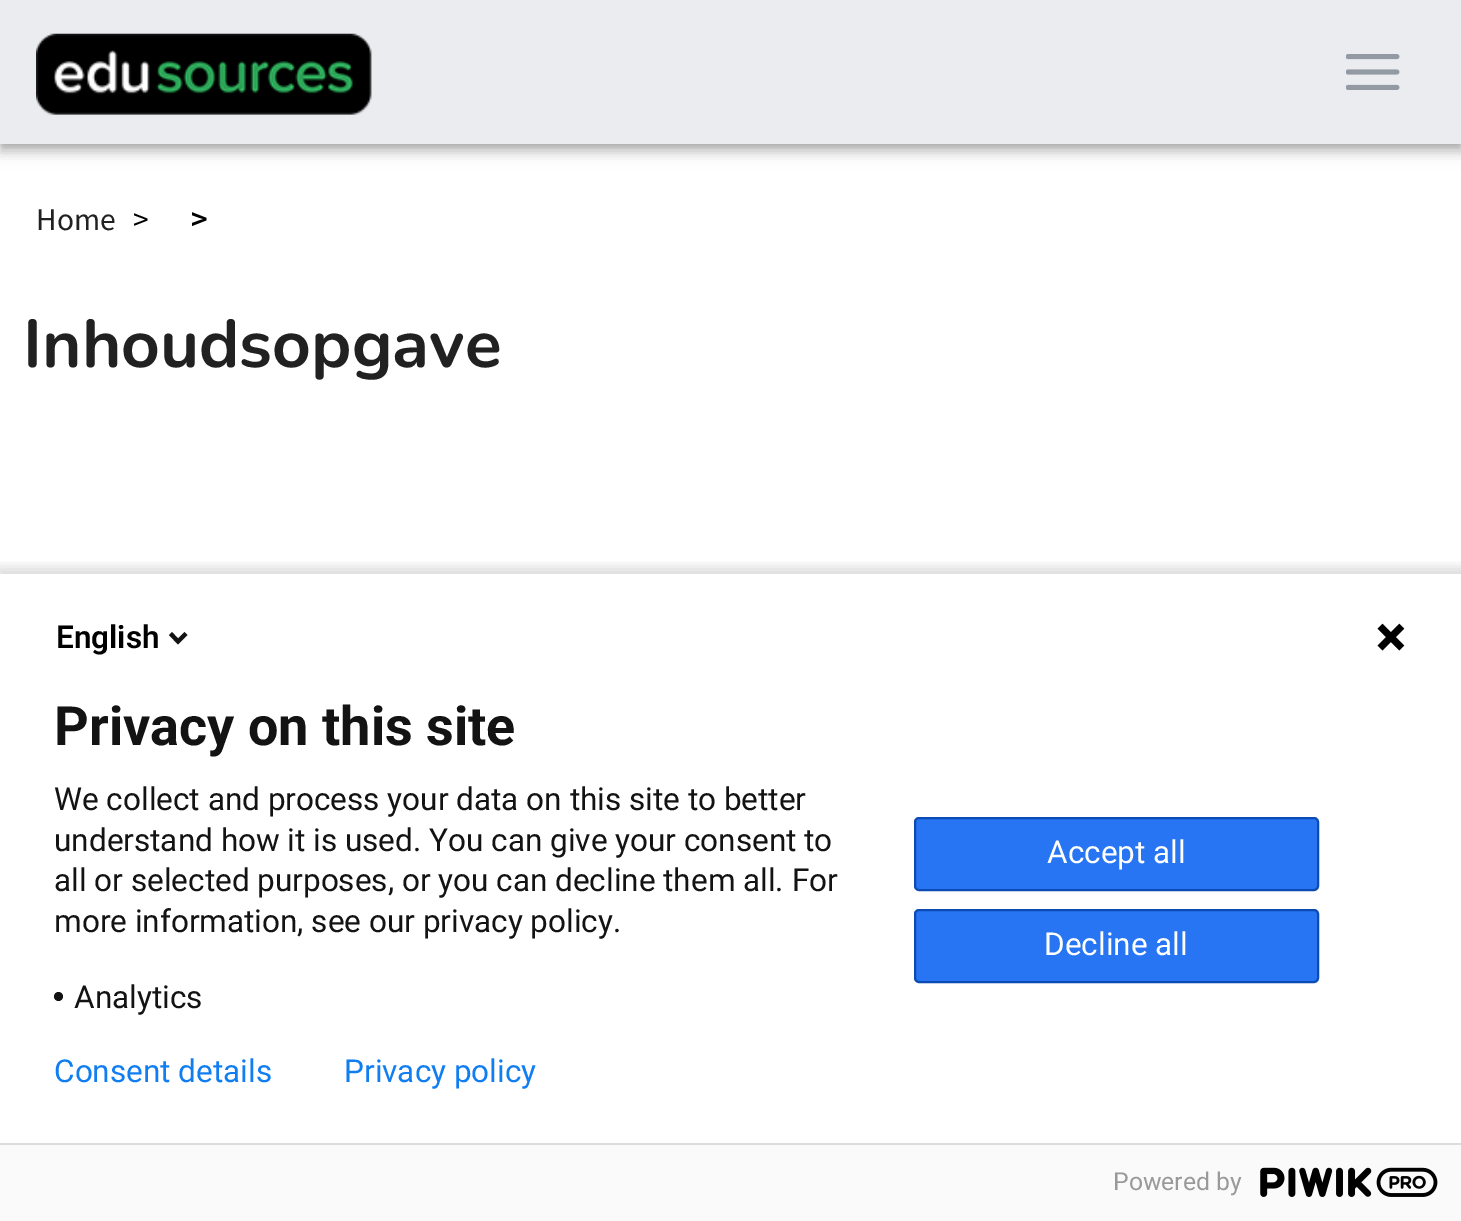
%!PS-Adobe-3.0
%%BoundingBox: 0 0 1461 1221
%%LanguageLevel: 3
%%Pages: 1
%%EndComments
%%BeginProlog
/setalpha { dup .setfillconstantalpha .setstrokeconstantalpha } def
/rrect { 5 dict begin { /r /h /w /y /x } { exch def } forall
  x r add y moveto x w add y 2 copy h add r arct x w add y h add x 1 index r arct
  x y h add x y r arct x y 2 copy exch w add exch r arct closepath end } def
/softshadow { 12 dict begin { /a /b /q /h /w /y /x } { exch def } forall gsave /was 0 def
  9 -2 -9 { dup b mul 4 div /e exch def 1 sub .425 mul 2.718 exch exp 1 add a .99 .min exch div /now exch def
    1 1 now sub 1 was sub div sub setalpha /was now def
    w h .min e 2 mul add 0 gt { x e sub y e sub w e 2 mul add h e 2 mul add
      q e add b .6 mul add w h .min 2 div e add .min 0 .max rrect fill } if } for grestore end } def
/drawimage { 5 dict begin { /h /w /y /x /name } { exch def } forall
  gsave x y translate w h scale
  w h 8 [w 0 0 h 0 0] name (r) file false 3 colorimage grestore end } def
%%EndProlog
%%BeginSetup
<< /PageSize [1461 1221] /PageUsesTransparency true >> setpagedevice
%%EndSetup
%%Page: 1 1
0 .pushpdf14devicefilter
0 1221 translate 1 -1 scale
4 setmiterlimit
1 setgray
0 0 1461 1221 rectfill
0 setgray
0 2 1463 144 0 11 0.12 softshadow
0 9 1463 144 0 5.5 0.14 softshadow
2 7 1458 139 0 4.5 0.2 softshadow
0.918 0.925 0.941 setrgbcolor
0 0 1461 144 rectfill
(images/1.raw) 36 33 336 82 drawimage
(images/2.raw) 1346 54 54 36 drawimage
gsave
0 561 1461 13 rectclip
0 setgray
-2 567 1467 653 0 5.5 0.14 softshadow
grestore
0.075 setgray
newpath 178 638.5 moveto 184.5 632 lineto 187.5 635 lineto 178 644.5 lineto 169 635 lineto 172 632 lineto closepath fill
(images/3.raw) 1377 623 28 28 drawimage
newpath 58.5 996.5 4.5 0 360 arc closepath fill
0.153 0.459 0.949 setrgbcolor
915 818 403 72 4 rrect gsave fill grestore
0.043 0.294 0.702 setrgbcolor
2 setlinewidth
stroke
0.153 0.459 0.949 setrgbcolor
915 910 403 72 4 rrect gsave fill grestore
0.043 0.294 0.702 setrgbcolor
stroke
0.98 setgray
0 1145 1461 76 rectfill
0.867 setgray
0 1143 1461 2 rectfill
(images/4.raw) 1260 1167 178 30 drawimage
/SourceSansPro-Regular [31.5 0 0 -31.5 0 0] selectfont
0.129 setgray
36 230 moveto (Home) show
0 setgray
133 230 moveto (>) show
/SourceSansPro-Bold [31.5 0 0 -31.5 0 0] selectfont
191 230 moveto (>) show
/Nunito-Bold [67.5 0 0 -67.5 0 0] selectfont
0.129 setgray
23 367 moveto (Inhoudsopgave) show
/Roboto-SemiBold [31.5 0 0 -31.5 0 0] selectfont
0 setgray
56 648 moveto (English) show
/Roboto-Bold [54 0 0 -54 0 0] selectfont
0.075 setgray
54 745 moveto (Privacy on this site) show
/Roboto-Regular [31.5 0 0 -31.5 0 0] selectfont
54 810 moveto (We collect and process your data on this site to better) show
54 851 moveto (understand how it is used. You can give your consent to) show
54 891 moveto (all or selected purposes, or you can decline them all. For) show
54 932 moveto (more information, see our privacy policy.) show
74 1008 moveto (Analytics) show
1 setgray
1047 863 moveto (Accept all) show
1044 955 moveto (Decline all) show
0.063 0.494 0.945 setrgbcolor
54 1082 moveto (Consent details) show
344 1082 moveto (Privacy policy) show
/Roboto-Regular [24.75 0 0 -24.75 0 0] selectfont
0.6 setgray
1113 1190 moveto (Powered by) show
.poppdf14devicefilter showpage
%%EOF
